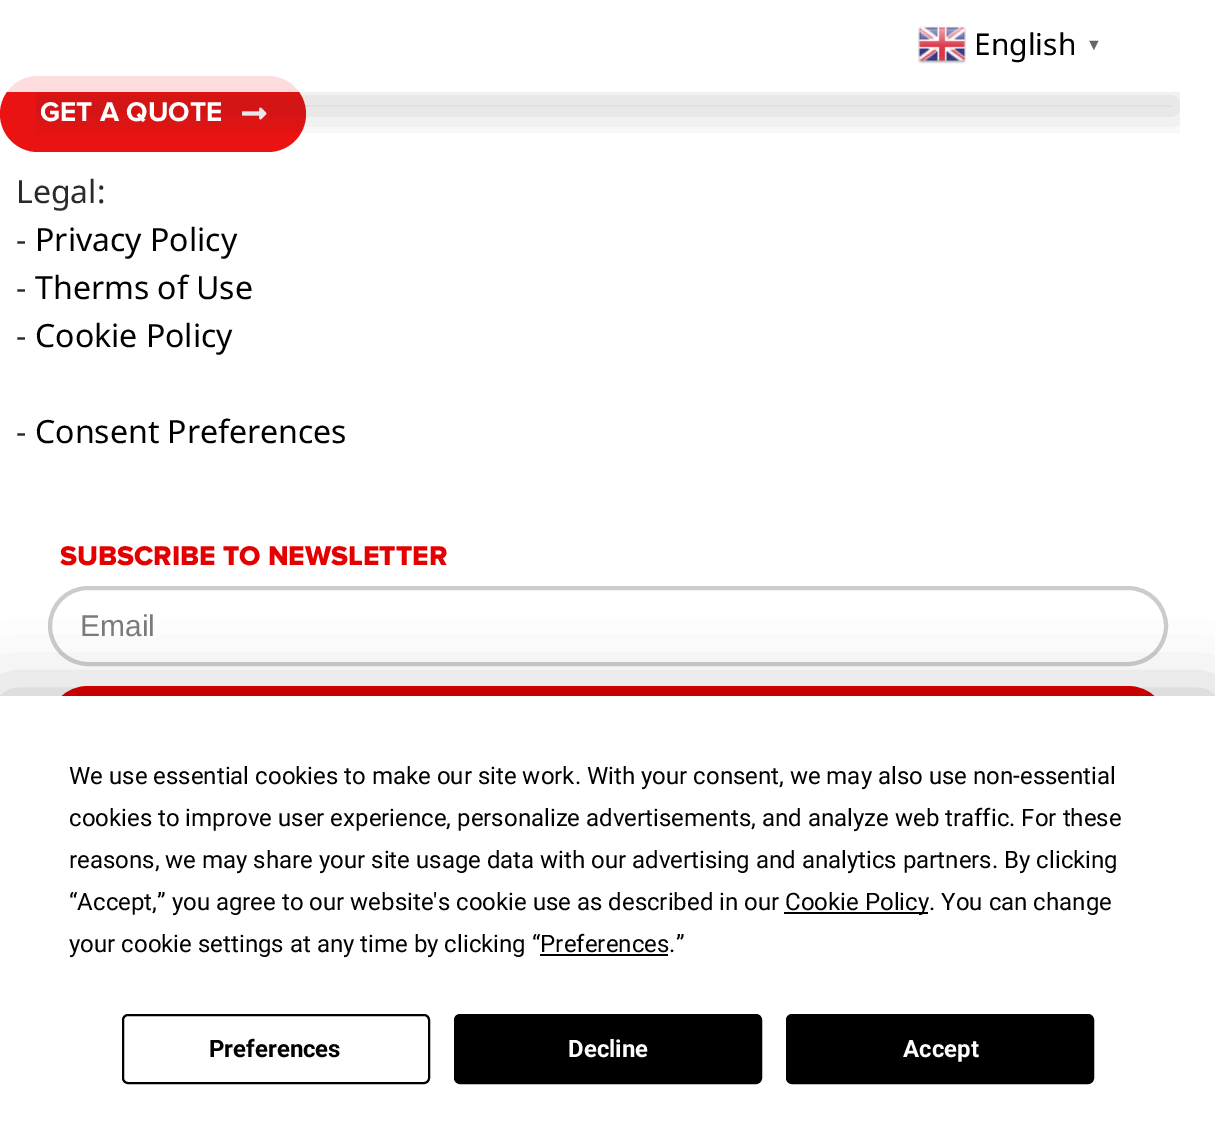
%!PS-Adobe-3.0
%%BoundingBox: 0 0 1215 1143
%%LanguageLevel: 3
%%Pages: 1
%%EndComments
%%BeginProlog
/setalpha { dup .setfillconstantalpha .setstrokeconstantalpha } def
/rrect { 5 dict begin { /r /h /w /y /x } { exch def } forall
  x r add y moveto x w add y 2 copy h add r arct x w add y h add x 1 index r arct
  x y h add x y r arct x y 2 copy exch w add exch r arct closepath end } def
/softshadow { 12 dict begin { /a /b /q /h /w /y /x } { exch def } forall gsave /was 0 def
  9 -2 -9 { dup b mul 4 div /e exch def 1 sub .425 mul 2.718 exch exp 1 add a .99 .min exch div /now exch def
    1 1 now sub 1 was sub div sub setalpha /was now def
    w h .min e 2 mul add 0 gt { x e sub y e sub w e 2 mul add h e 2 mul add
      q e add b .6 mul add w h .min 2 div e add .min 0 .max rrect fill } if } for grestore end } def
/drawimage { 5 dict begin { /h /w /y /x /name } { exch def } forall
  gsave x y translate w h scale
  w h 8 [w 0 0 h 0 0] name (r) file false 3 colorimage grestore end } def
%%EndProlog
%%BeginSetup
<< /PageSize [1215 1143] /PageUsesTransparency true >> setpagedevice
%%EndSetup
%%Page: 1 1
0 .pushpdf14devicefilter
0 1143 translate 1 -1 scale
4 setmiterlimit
1 setgray
0 0 1215 1143 rectfill
0.918 0.075 0.075 setrgbcolor
0 76 306 76 38 rrect fill
(images/2.raw) 242 107 25 13 drawimage
gsave
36 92 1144 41 rectclip
0.129 0.137 0.153 setrgbcolor
40 100 1136 12 0 20 0.2 softshadow
grestore
0.85 setalpha
1 setgray
7 76 292 16 rectfill
1 setalpha
(images/1.raw) 918 26 48 38 drawimage
0.8 setgray
4 setlinewidth
50 588 1116 76 38 rrect stroke
0.894 0 0 setrgbcolor
50 688 1116 76 38 rrect gsave fill grestore
stroke
0 setgray
0 696 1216 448 0 35 0.25 softshadow
1 setgray
0 696 1215 447 rectfill
0 setgray
784 912 144 2 rectfill
540 954 128 2 rectfill
2 setlinewidth
123 1015 306 68 5 rrect stroke
455 1015 306 68 5 rrect gsave fill grestore
stroke
787 1015 306 68 5 rrect gsave fill grestore
stroke
/NotoSans-Regular [30 0 0 -30 0 0] selectfont
974 55 moveto (English) show
/LiberationSans-Bold [16 0 0 -16 0 0] selectfont
0.4 setgray
1086 50 moveto (▼) show
/ProximaNova-Bold [28 0 0 -28 0 0] selectfont
1 setgray
40 121 moveto (GET A QUOTE) show
/NotoSans-Regular [32 0 0 -32 0 0] selectfont
0.161 0.169 0.173 setrgbcolor
16 203 moveto (Legal:) show
16 251 moveto (-) show
0 setgray
35 251 moveto (Privacy Policy) show
0.161 0.169 0.173 setrgbcolor
16 299 moveto (-) show
0 setgray
35 299 moveto (Therms of Use) show
0.161 0.169 0.173 setrgbcolor
16 347 moveto (-) show
0 setgray
35 347 moveto (Cookie Policy) show
0.161 0.169 0.173 setrgbcolor
16 443 moveto (-) show
0 setgray
35 443 moveto (Consent Preferences) show
/ProximaNova-ExtraBold [28 0 0 -28 0 0] selectfont
0.894 0 0 setrgbcolor
60 565 moveto (SUBSCRIBE TO NEWSLETTER) show
/LiberationSans-Regular [30 0 0 -30 0 0] selectfont
0.475 0.478 0.486 setrgbcolor
80 636 moveto (Email) show
/Roboto-Regular [24 0 0 -24 0 0] selectfont
0 setgray
69 784 moveto (We use essential cookies to make our site work. With your consent, we may also use non-essential) show
69 826 moveto (cookies to improve user experience, personalize advertisements, and analyze web traffic. For these) show
69 868 moveto (reasons, we may share your site usage data with our advertising and analytics partners. By clicking) show
69 910 moveto (“Accept,” you agree to our website's cookie use as described in our) show
785 910 moveto (Cookie Policy. You can change) show
69 952 moveto (your cookie settings at any time by clicking “Preferences.”) show
/Roboto-Bold [24 0 0 -24 0 0] selectfont
209 1057 moveto (Preferences) show
1 setgray
568 1057 moveto (Decline) show
903 1057 moveto (Accept) show
.poppdf14devicefilter showpage
%%EOF
